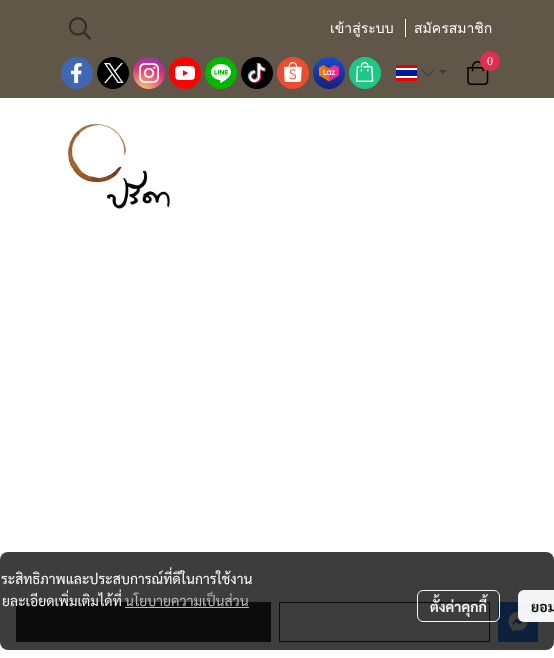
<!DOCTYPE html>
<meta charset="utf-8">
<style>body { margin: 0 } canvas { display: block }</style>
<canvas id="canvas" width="554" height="658"></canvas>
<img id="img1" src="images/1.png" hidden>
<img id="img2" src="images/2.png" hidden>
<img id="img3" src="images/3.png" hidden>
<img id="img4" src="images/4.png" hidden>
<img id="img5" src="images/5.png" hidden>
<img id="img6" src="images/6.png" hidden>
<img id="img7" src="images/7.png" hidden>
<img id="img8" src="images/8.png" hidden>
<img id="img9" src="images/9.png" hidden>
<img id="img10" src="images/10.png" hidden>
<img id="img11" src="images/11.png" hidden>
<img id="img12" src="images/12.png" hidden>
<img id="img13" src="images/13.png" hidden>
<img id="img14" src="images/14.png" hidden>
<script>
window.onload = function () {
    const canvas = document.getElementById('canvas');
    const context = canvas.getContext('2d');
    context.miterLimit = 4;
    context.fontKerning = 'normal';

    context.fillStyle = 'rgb(97, 87, 72)';
    context.fillRect(0, 0, 554, 658);
    context.drawImage(document.getElementById('img1'), 68, 17, 24, 23);
    context.fillStyle = 'rgb(255, 255, 255)';
    context.fillRect(405, 19, 1, 18);
    context.drawImage(document.getElementById('img2'), 61, 57, 32, 32);
    context.drawImage(document.getElementById('img3'), 97, 57, 32, 32);
    context.drawImage(document.getElementById('img4'), 133, 57, 32, 32);
    context.drawImage(document.getElementById('img5'), 169, 57, 32, 32);
    context.drawImage(document.getElementById('img6'), 205, 57, 32, 32);
    context.drawImage(document.getElementById('img7'), 241, 57, 32, 32);
    context.drawImage(document.getElementById('img8'), 277, 57, 32, 32);
    context.drawImage(document.getElementById('img9'), 313, 57, 32, 32);
    context.drawImage(document.getElementById('img10'), 349, 57, 32, 32);
    context.drawImage(document.getElementById('img11'), 467, 61, 22, 24);
    context.fillStyle = 'rgb(227, 45, 79)';
    context.beginPath();
    context.arc(490, 61, 10, 0, 2 * Math.PI);
    context.fill();
    context.fillStyle = 'rgb(255, 255, 255)';
    context.fillRect(396, 68, 21, 10);
    context.fillStyle = 'rgb(0, 27, 154)';
    context.fillRect(396, 70, 21, 6);
    context.fillStyle = 'rgb(231, 0, 0)';
    context.fillRect(396, 65, 21, 3);
    context.fillRect(396, 78, 21, 3);
    context.drawImage(document.getElementById('img12'), 421, 68, 14, 9);
    context.fillStyle = 'rgb(55, 62, 68)';
    context.beginPath();
    context.moveTo(439, 70);
    context.lineTo(447, 70);
    context.lineTo(443, 74);
    context.closePath();
    context.fill();
    context.fillStyle = 'rgb(255, 255, 255)';
    context.fillRect(0, 98, 554, 560);
    context.drawImage(document.getElementById('img13'), 68, 123, 102, 86);
    context.fillStyle = 'rgb(51, 51, 51)';
    context.fillRect(16, 602, 255, 40);
    context.strokeStyle = 'rgb(51, 51, 51)';
    context.strokeRect(279.5, 602.5, 210, 39);
    context.fillStyle = 'rgb(56, 133, 245)';
    context.fillRect(498, 602, 40, 40);
    context.drawImage(document.getElementById('img14'), 508, 612, 20, 20);
    context.fillStyle = 'rgba(0, 0, 0, 0.76)';
    context.beginPath();
    context.roundRect(0, 552, 554, 98, 8);
    context.fill();
    context.fillStyle = 'rgb(187, 187, 187)';
    context.fillRect(125, 607, 124, 1);
    context.beginPath();
    context.roundRect(417.5, 590.5, 82, 31, 5.5);
    context.strokeStyle = 'rgba(255, 255, 255, 0.95)';
    context.stroke();
    context.fillStyle = 'rgba(255, 255, 255, 0.95)';
    context.beginPath();
    context.roundRect(518, 590, 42, 32, 6);
    context.fill();
    context.font = '14px Loma';
    context.fillStyle = 'rgb(255, 255, 255)';
    context.fillText('เข้าสู่ระบบ', 330, 33);
    context.fillText('สมัครสมาชิก', 414, 33);
    context.font = '12px Liberation Serif';
    context.fillText('0', 487, 65);
    context.font = '14px Sarabun';
    context.fillText('ระสิทธิภาพและประสบการณ์ที่ดีในการใช้งาน', 1, 584);
    context.fillStyle = 'rgb(244, 244, 244)';
    context.fillText('ยละเอียดเพิ่มเติมได้ที่', 2, 606);
    context.fillStyle = 'rgb(186, 186, 186)';
    context.fillText('นโยบายความเป็นส่วน', 125, 606);
    context.font = 'bold 14px Sarabun';
    context.fillStyle = 'rgb(244, 244, 244)';
    context.fillText('ตั้งค่าคุกกี้', 430, 612);
    context.fillStyle = 'rgb(12, 12, 12)';
    context.fillText('ยอม', 531, 612);
};
</script>
